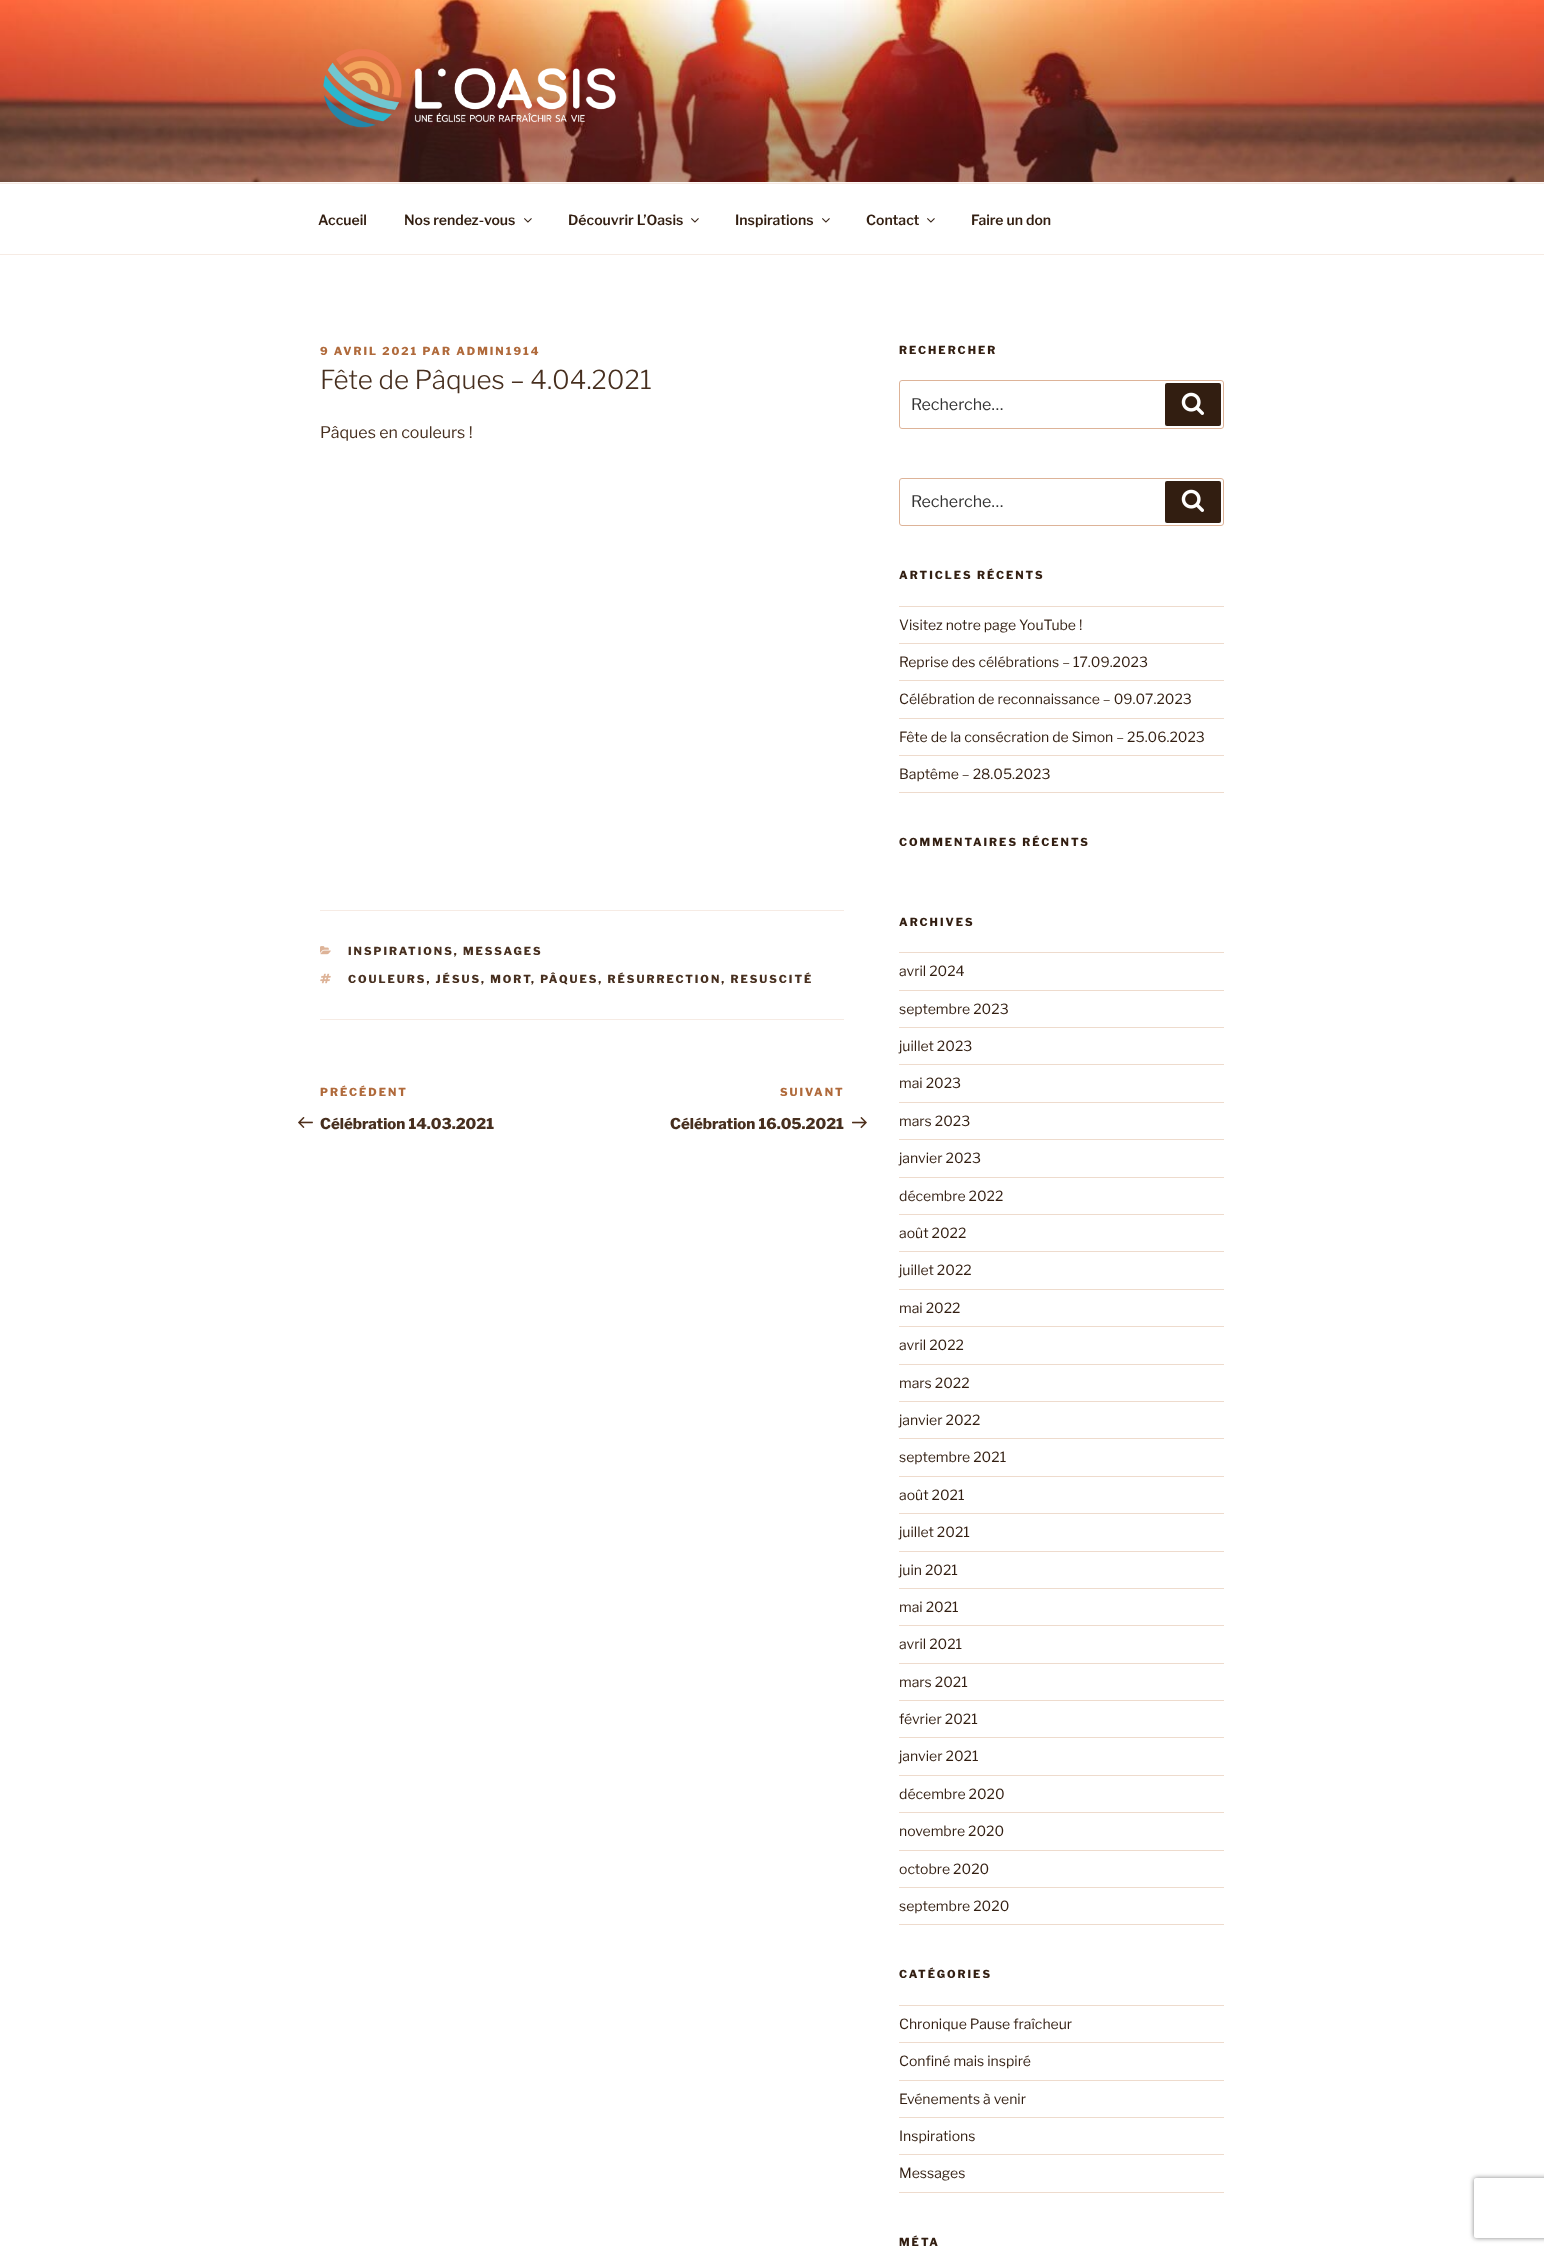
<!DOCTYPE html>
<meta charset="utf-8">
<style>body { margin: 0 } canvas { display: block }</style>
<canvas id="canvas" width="1544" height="2252"></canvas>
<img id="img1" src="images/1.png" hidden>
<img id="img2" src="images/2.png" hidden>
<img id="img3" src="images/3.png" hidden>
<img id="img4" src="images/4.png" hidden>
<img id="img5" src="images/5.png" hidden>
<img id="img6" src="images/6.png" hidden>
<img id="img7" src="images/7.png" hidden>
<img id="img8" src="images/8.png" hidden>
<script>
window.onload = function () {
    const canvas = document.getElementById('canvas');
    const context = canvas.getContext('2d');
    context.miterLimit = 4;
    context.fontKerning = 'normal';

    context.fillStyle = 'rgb(255, 255, 255)';
    context.fillRect(0, 0, 1544, 2252);
    context.fillStyle = 'rgb(252, 249, 247)';
    context.fillRect(0, 182, 1544, 1);
    context.drawImage(document.getElementById('img1'), 0, 0, 1544, 182);
    context.drawImage(document.getElementById('img2'), 323, 49, 293, 79);
    context.fillStyle = 'rgb(246, 235, 228)';
    context.fillRect(0, 183, 1544, 1);
    context.fillRect(0, 254, 1544, 1);
    context.drawImage(document.getElementById('img3'), 524, 218, 8, 5);
    context.drawImage(document.getElementById('img3'), 691, 218, 8, 5);
    context.drawImage(document.getElementById('img3'), 822, 218, 8, 5);
    context.drawImage(document.getElementById('img3'), 927, 218, 8, 5);
    context.fillRect(320, 910, 524, 1);
    context.fillRect(320, 1019, 524, 1);
    context.drawImage(document.getElementById('img4'), 320, 946, 11, 9);
    context.drawImage(document.getElementById('img5'), 320, 973, 11, 11);
    context.drawImage(document.getElementById('img6'), 298, 1117, 15, 11);
    context.drawImage(document.getElementById('img7'), 852, 1117, 15, 12);
    context.beginPath();
    context.roundRect(899.5, 380.5, 324, 48, 2.5);
    context.strokeStyle = 'rgb(221, 179, 152)';
    context.stroke();
    context.fillStyle = 'rgb(50, 30, 17)';
    context.beginPath();
    context.roundRect(1165, 383, 56, 43, 2);
    context.fill();
    context.drawImage(document.getElementById('img8'), 1181, 392, 23, 23);
    context.beginPath();
    context.roundRect(899.5, 478.5, 324, 47, 2.5);
    context.stroke();
    context.beginPath();
    context.roundRect(1165, 481, 56, 42, 2);
    context.fill();
    context.drawImage(document.getElementById('img8'), 1181, 489, 23, 23);
    context.fillStyle = 'rgb(238, 219, 205)';
    context.fillRect(899, 606, 325, 1);
    context.fillRect(899, 643, 325, 1);
    context.fillRect(899, 680, 325, 1);
    context.fillRect(899, 718, 325, 1);
    context.fillRect(899, 755, 325, 1);
    context.fillRect(899, 792, 325, 1);
    context.fillRect(899, 952, 325, 1);
    context.fillRect(899, 990, 325, 1);
    context.fillRect(899, 1027, 325, 1);
    context.fillRect(899, 1064, 325, 1);
    context.fillRect(899, 1102, 325, 1);
    context.fillRect(899, 1139, 325, 1);
    context.fillRect(899, 1177, 325, 1);
    context.fillRect(899, 1214, 325, 1);
    context.fillRect(899, 1251, 325, 1);
    context.fillRect(899, 1289, 325, 1);
    context.fillRect(899, 1326, 325, 1);
    context.fillRect(899, 1364, 325, 1);
    context.fillRect(899, 1401, 325, 1);
    context.fillRect(899, 1438, 325, 1);
    context.fillRect(899, 1476, 325, 1);
    context.fillRect(899, 1513, 325, 1);
    context.fillRect(899, 1551, 325, 1);
    context.fillRect(899, 1588, 325, 1);
    context.fillRect(899, 1625, 325, 1);
    context.fillRect(899, 1663, 325, 1);
    context.fillRect(899, 1700, 325, 1);
    context.fillRect(899, 1737, 325, 1);
    context.fillRect(899, 1775, 325, 1);
    context.fillRect(899, 1812, 325, 1);
    context.fillRect(899, 1850, 325, 1);
    context.fillRect(899, 1887, 325, 1);
    context.fillRect(899, 1924, 325, 1);
    context.fillRect(899, 2005, 325, 1);
    context.fillRect(899, 2042, 325, 1);
    context.fillRect(899, 2080, 325, 1);
    context.fillRect(899, 2117, 325, 1);
    context.fillRect(899, 2154, 325, 1);
    context.fillRect(899, 2192, 325, 1);
    context.save();
    context.beginPath();
    context.moveTo(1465, 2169);
    context.lineTo(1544, 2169);
    context.lineTo(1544, 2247);
    context.lineTo(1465, 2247);
    context.closePath();
    context.moveTo(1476, 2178);
    context.lineTo(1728, 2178);
    context.bezierCurveTo(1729, 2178, 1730, 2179, 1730, 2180);
    context.lineTo(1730, 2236);
    context.bezierCurveTo(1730, 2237, 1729, 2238, 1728, 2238);
    context.lineTo(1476, 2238);
    context.bezierCurveTo(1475, 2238, 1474, 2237, 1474, 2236);
    context.lineTo(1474, 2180);
    context.bezierCurveTo(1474, 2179, 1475, 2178, 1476, 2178);
    context.closePath();
    context.clip('evenodd');
    context.fillStyle = 'rgb(128, 128, 128)';
    context.filter = 'blur(2.5px)';
    context.beginPath();
    context.roundRect(1474, 2178, 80, 60, 2);
    context.fill();
    context.filter = 'none';
    context.restore();
    context.font = '600 14px Libre Franklin';
    context.fillStyle = 'rgb(50, 30, 17)';
    context.fillText('Accueil', 318, 225);
    context.fillText('Nos rendez-vous', 404, 225);
    context.fillText('Découvrir L’Oasis', 568, 225);
    context.fillText('Inspirations', 735, 225);
    context.fillText('Contact', 866, 225);
    context.fillText('Faire un don', 971, 225);
    context.letterSpacing = '2px';
    context.font = '800 11px Libre Franklin';
    context.fillStyle = 'rgb(176, 106, 59)';
    context.fillText('9 AVRIL 2021 PAR ADMIN1914', 320, 355);
    context.letterSpacing = '0px';
    context.font = '300 26px Libre Franklin';
    context.fillStyle = 'rgb(71, 47, 31)';
    context.fillText('Fête de Pâques – 4.04.2021', 320, 389);
    context.font = '16px Libre Franklin';
    context.fillText('Pâques en couleurs !', 320, 438);
    context.letterSpacing = '2px';
    context.font = '800 11px Libre Franklin';
    context.fillText('INSPIRATIONS, MESSAGES', 348, 955);
    context.fillText('COULEURS, JÉSUS, MORT', 348, 983);
    context.fillText(', PÂQUES, RÉSURRECTION, RESUSCITÉ', 531, 983);
    context.fillStyle = 'rgb(176, 106, 59)';
    context.fillText('PRÉCÉDENT', 320, 1096);
    context.letterSpacing = '0px';
    context.font = '800 15px Libre Franklin';
    context.fillStyle = 'rgb(71, 47, 31)';
    context.fillText('Célébration 14.03.2021', 320, 1129);
    context.letterSpacing = '2px';
    context.font = '800 11px Libre Franklin';
    context.fillStyle = 'rgb(176, 106, 59)';
    context.fillText('SUIVANT', 780, 1096);
    context.letterSpacing = '0px';
    context.font = '800 15px Libre Franklin';
    context.fillStyle = 'rgb(71, 47, 31)';
    context.fillText('Célébration 16.05.2021', 670, 1129);
    context.letterSpacing = '2px';
    context.font = '800 11px Libre Franklin';
    context.fillStyle = 'rgb(50, 30, 17)';
    context.fillText('RECHERCHER', 899, 354);
    context.letterSpacing = '0px';
    context.font = '16px Libre Franklin';
    context.fillStyle = 'rgb(51, 51, 51)';
    context.fillText('Recherche…', 911, 410);
    context.fillText('Recherche…', 911, 507);
    context.letterSpacing = '2px';
    context.font = '800 11px Libre Franklin';
    context.fillStyle = 'rgb(50, 30, 17)';
    context.fillText('ARTICLES RÉCENTS', 899, 579);
    context.letterSpacing = '0px';
    context.font = '14px Libre Franklin';
    context.fillText('Visitez notre page YouTube !', 899, 630);
    context.fillText('Reprise des célébrations – 17.09.2023', 899, 667);
    context.fillText('Célébration de reconnaissance – 09.07.2023', 899, 704);
    context.fillText('Fête de la consécration de Simon – 25.06.2023', 899, 742);
    context.fillText('Baptême – 28.05.2023', 899, 779);
    context.letterSpacing = '2px';
    context.font = '800 11px Libre Franklin';
    context.fillText('COMMENTAIRES RÉCENTS', 899, 846);
    context.fillText('ARCHIVES', 899, 926);
    context.letterSpacing = '0px';
    context.font = '14px Libre Franklin';
    context.fillText('avril 2024', 899, 976);
    context.fillText('septembre 2023', 899, 1014);
    context.fillText('juillet 2023', 899, 1051);
    context.fillText('mai 2023', 899, 1088);
    context.fillText('mars 2023', 899, 1126);
    context.fillText('janvier 2023', 899, 1163);
    context.fillText('décembre 2022', 899, 1201);
    context.fillText('août 2022', 899, 1238);
    context.fillText('juillet 2022', 899, 1275);
    context.fillText('mai 2022', 899, 1313);
    context.fillText('avril 2022', 899, 1350);
    context.fillText('mars 2022', 899, 1388);
    context.fillText('janvier 2022', 899, 1425);
    context.fillText('septembre 2021', 899, 1462);
    context.fillText('août 2021', 899, 1500);
    context.fillText('juillet 2021', 899, 1537);
    context.fillText('juin 2021', 899, 1575);
    context.fillText('mai 2021', 899, 1612);
    context.fillText('avril 2021', 899, 1649);
    context.fillText('mars 2021', 899, 1687);
    context.fillText('février 2021', 899, 1724);
    context.fillText('janvier 2021', 899, 1761);
    context.fillText('décembre 2020', 899, 1799);
    context.fillText('novembre 2020', 899, 1836);
    context.fillText('octobre 2020', 899, 1874);
    context.fillText('septembre 2020', 899, 1911);
    context.letterSpacing = '2px';
    context.font = '800 11px Libre Franklin';
    context.fillText('CATÉGORIES', 899, 1978);
    context.letterSpacing = '0px';
    context.font = '14px Libre Franklin';
    context.fillText('Chronique Pause fraîcheur', 899, 2029);
    context.fillText('Confiné mais inspiré', 899, 2066);
    context.fillText('Evénements à venir', 899, 2104);
    context.fillText('Inspirations', 899, 2141);
    context.fillText('Messages', 899, 2178);
    context.letterSpacing = '2px';
    context.font = '800 11px Libre Franklin';
    context.fillText('MÉTA', 899, 2246);
};
</script>
